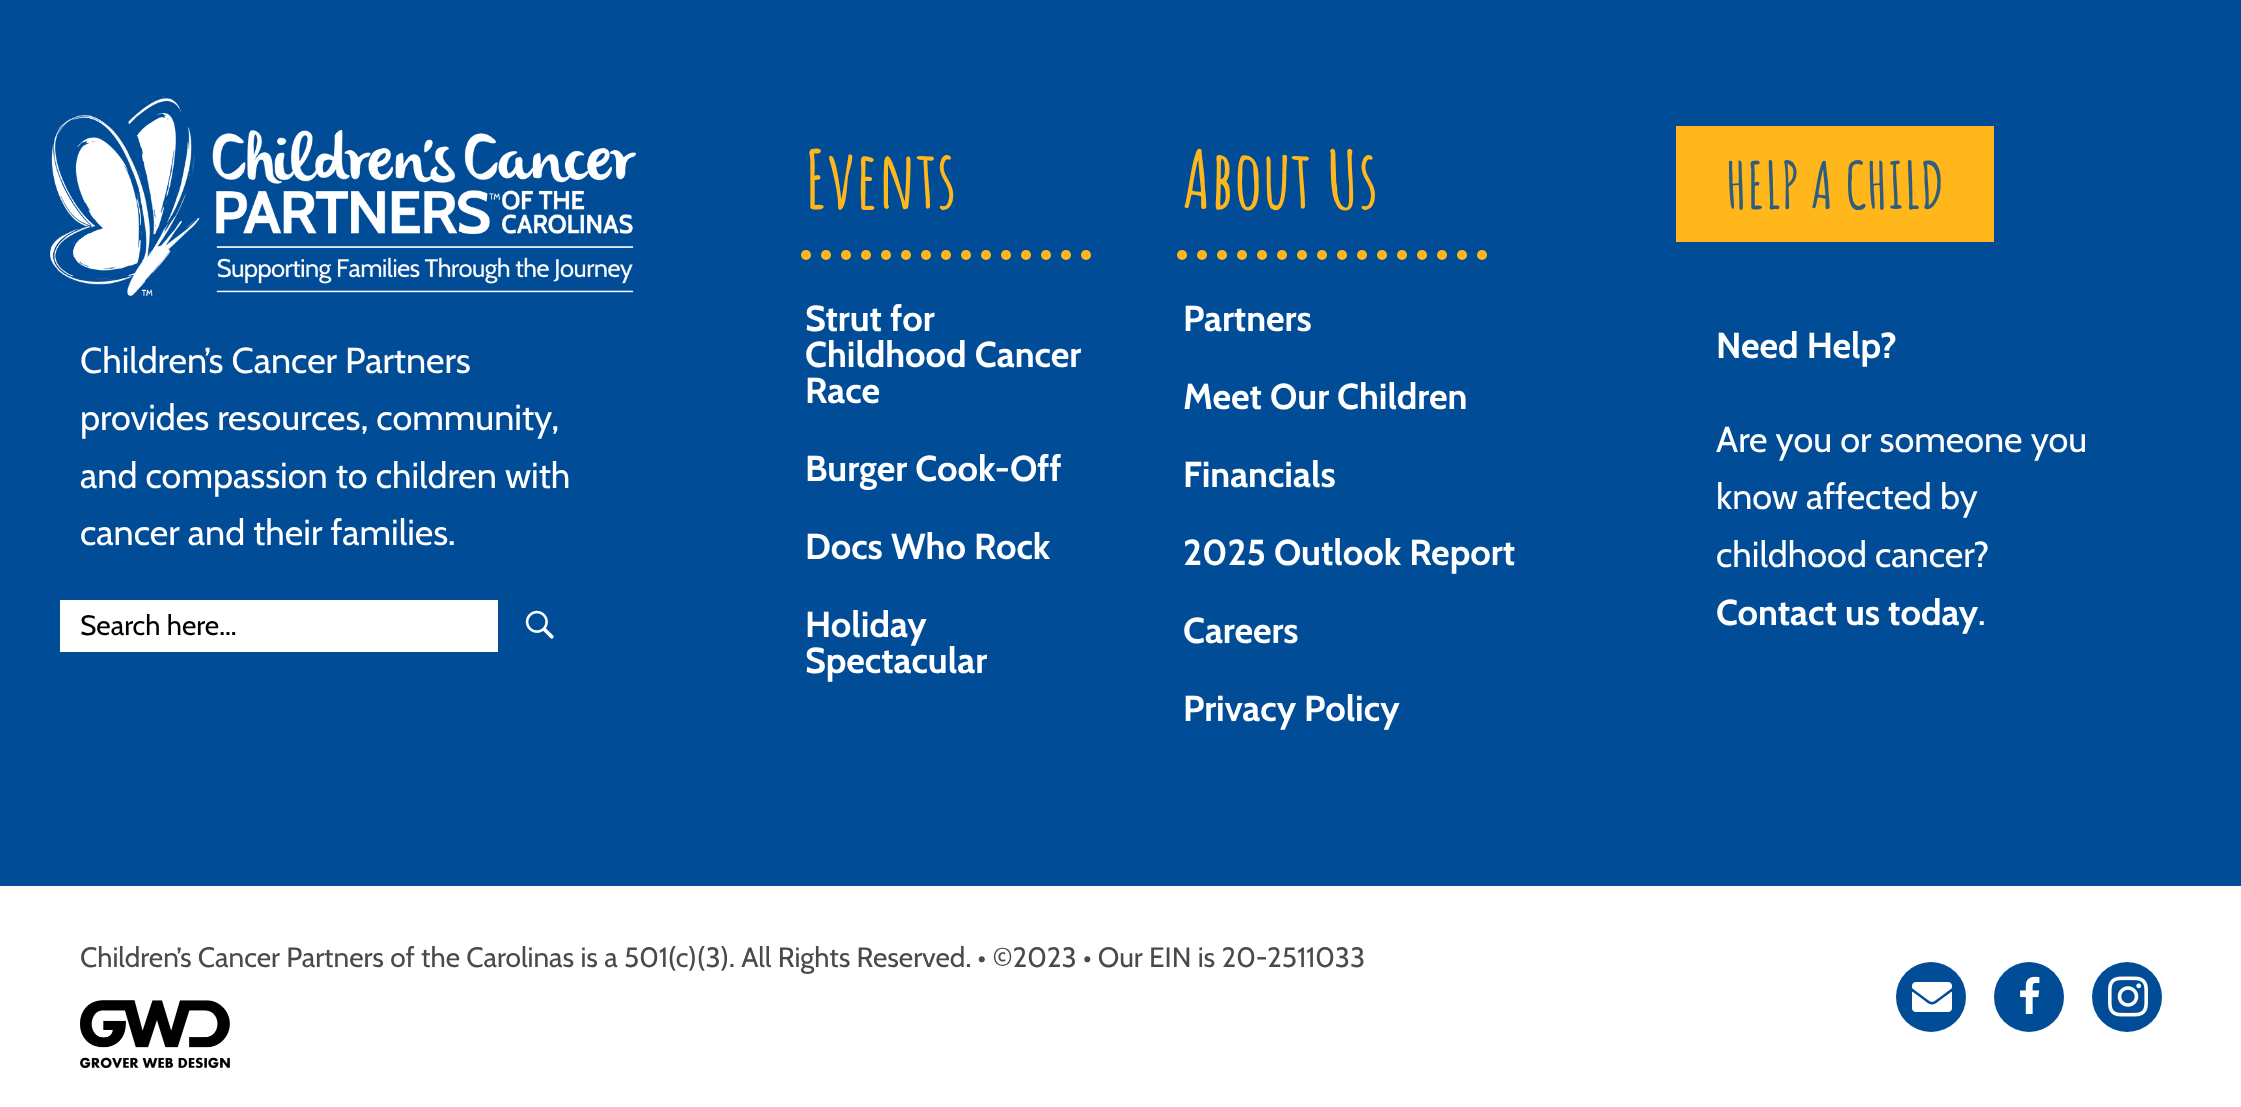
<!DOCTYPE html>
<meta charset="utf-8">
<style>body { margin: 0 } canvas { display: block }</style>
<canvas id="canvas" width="2241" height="1107"></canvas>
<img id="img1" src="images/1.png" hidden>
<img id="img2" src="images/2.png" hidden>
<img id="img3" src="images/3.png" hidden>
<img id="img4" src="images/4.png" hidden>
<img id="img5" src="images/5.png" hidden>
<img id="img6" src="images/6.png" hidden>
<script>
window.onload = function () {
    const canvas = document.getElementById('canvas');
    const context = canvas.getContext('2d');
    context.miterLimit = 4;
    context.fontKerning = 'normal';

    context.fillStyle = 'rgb(255, 255, 255)';
    context.fillRect(0, 0, 2241, 1107);
    context.fillStyle = 'rgb(0, 76, 150)';
    context.fillRect(0, 0, 2241, 886);
    context.drawImage(document.getElementById('img1'), 50, 96, 586, 200);
    context.fillStyle = 'rgb(255, 255, 255)';
    context.fillRect(60, 600, 438, 52);
    context.drawImage(document.getElementById('img2'), 525, 610, 29, 29);
    context.beginPath();
    context.moveTo(806, 255);
    context.lineTo(1102, 255);
    context.strokeStyle = 'rgb(255, 183, 28)';
    context.lineWidth = 10;
    context.lineCap = 'round';
    context.setLineDash([0, 20]);
    context.stroke();
    context.beginPath();
    context.moveTo(1182, 255);
    context.lineTo(1502, 255);
    context.stroke();
    context.fillStyle = 'rgb(255, 183, 28)';
    context.fillRect(1676, 126, 318, 116);
    context.drawImage(document.getElementById('img3'), 80, 1000, 150, 68);
    context.fillStyle = 'rgb(0, 76, 150)';
    context.beginPath();
    context.arc(1931, 997, 35, 0, 2 * Math.PI);
    context.fill();
    context.drawImage(document.getElementById('img4'), 1912, 982, 40, 30);
    context.beginPath();
    context.arc(2029, 997, 35, 0, 2 * Math.PI);
    context.fill();
    context.drawImage(document.getElementById('img5'), 2020, 976, 20, 38);
    context.beginPath();
    context.arc(2127, 997, 35, 0, 2 * Math.PI);
    context.fill();
    context.drawImage(document.getElementById('img6'), 2108, 976, 40, 41);
    context.font = '36px Cabin';
    context.fillStyle = 'rgb(255, 255, 255)';
    context.fillText('Children’s Cancer Partners', 80, 373);
    context.fillText('provides resources, community,', 80, 430);
    context.fillText('and compassion to children with', 80, 488);
    context.fillText('cancer and their families.', 80, 545);
    context.font = '28px Cabin';
    context.fillStyle = 'rgb(0, 0, 0)';
    context.fillText('Search here...', 80, 635);
    context.font = 'bold 80px Amatic SC';
    context.fillStyle = 'rgb(255, 183, 28)';
    context.fillText('Events', 805, 209);
    context.font = 'bold 36px Cabin';
    context.fillStyle = 'rgb(255, 255, 255)';
    context.fillText('Strut for', 805, 331);
    context.fillText('Childhood Cancer', 805, 367);
    context.fillText('Race', 805, 403);
    context.fillText('Burger Cook-Off', 805, 481);
    context.fillText('Docs Who Rock', 805, 559);
    context.fillText('Holiday', 805, 637);
    context.fillText('Spectacular', 805, 673);
    context.font = 'bold 80px Amatic SC';
    context.fillStyle = 'rgb(255, 183, 28)';
    context.fillText('About Us', 1183, 209);
    context.font = 'bold 36px Cabin';
    context.fillStyle = 'rgb(255, 255, 255)';
    context.fillText('Partners', 1183, 331);
    context.fillText('Meet Our Children', 1183, 409);
    context.fillText('Financials', 1183, 487);
    context.fillText('2025 Outlook Report', 1183, 565);
    context.fillText('Careers', 1183, 643);
    context.fillText('Privacy Policy', 1183, 721);
    context.font = 'bold 64px Amatic SC';
    context.fillStyle = 'rgb(48, 92, 125)';
    context.fillText('HELP A CHILD', 1726, 209);
    context.font = 'bold 36px Cabin';
    context.fillStyle = 'rgb(255, 255, 255)';
    context.fillText('Need Help?', 1716, 358);
    context.font = '36px Cabin';
    context.fillText('Are you or someone you', 1716, 452);
    context.fillText('know affected by', 1716, 509);
    context.fillText('childhood cancer?', 1716, 567);
    context.font = 'bold 36px Cabin';
    context.fillText('Contact us today', 1716, 625);
    context.font = '36px Cabin';
    context.fillText('.', 1978, 625);
    context.font = '28px Cabin';
    context.fillStyle = 'rgb(73, 74, 75)';
    context.fillText('Children’s Cancer Partners of the Carolinas is a 501(c)(3). All Rights Reserved. • ©2023 • Our EIN is 20-2511033', 80, 967);
};
</script>
